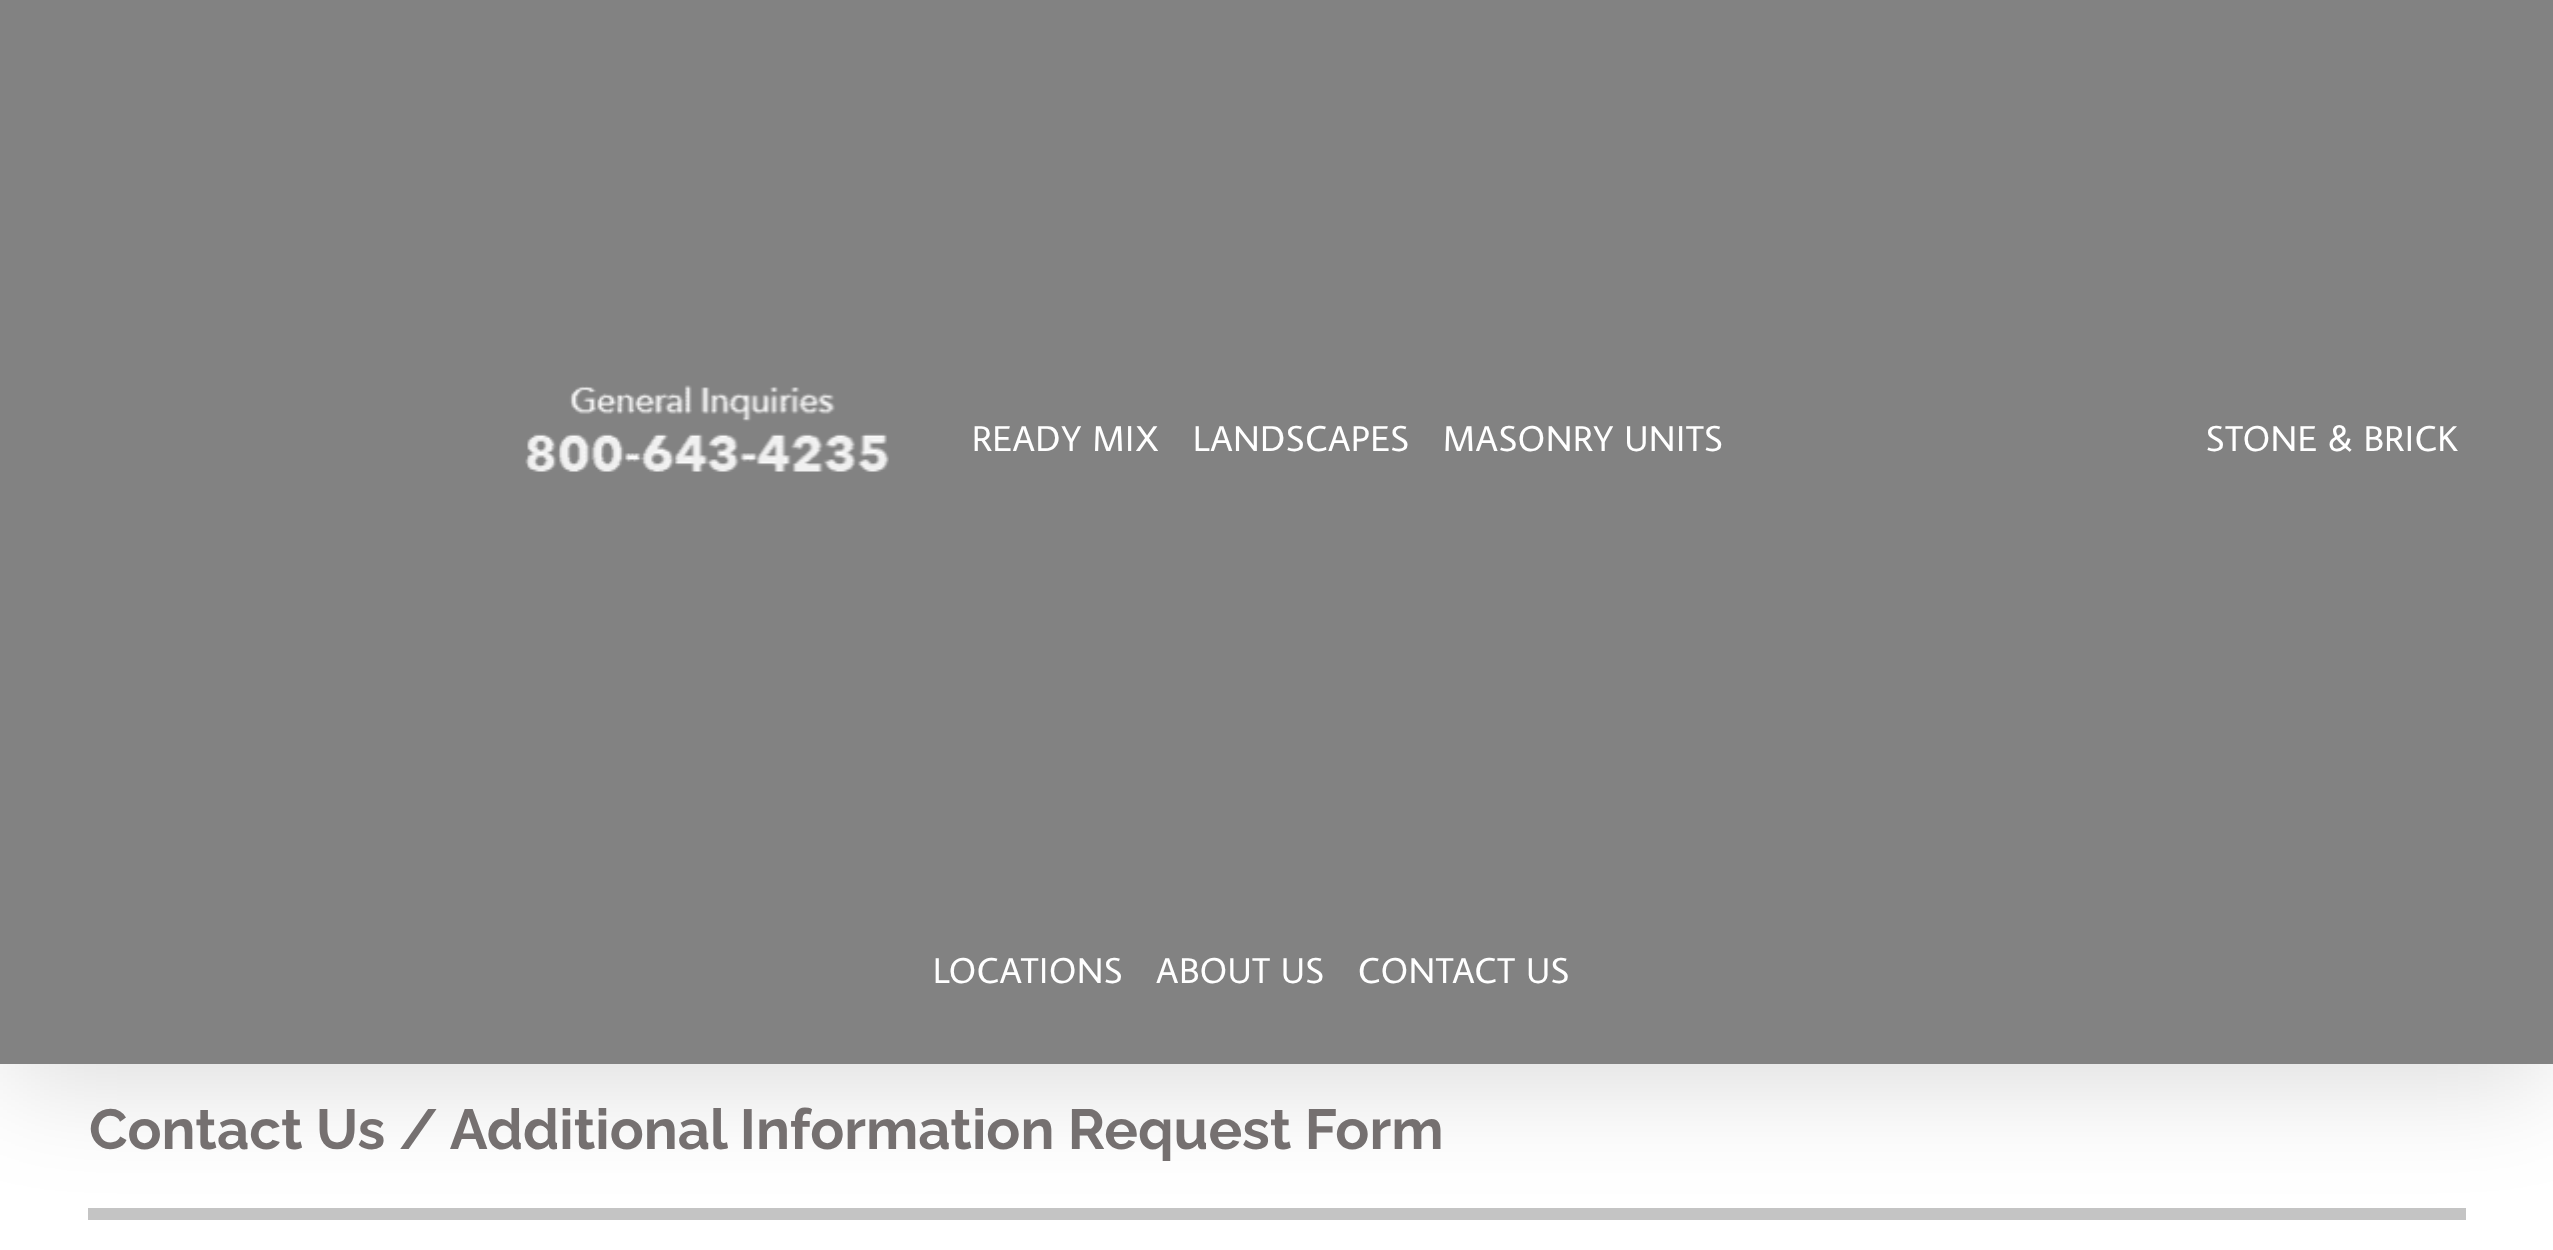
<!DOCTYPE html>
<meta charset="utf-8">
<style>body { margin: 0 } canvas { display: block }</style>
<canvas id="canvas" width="2553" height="1250"></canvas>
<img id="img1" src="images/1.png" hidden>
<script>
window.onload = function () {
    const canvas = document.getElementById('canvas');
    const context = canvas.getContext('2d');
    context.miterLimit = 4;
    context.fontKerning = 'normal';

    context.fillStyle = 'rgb(255, 255, 255)';
    context.fillRect(0, 0, 2553, 1250);
    context.fillStyle = 'rgb(196, 196, 196)';
    context.fillRect(88, 1208, 2378, 12);
    context.fillStyle = 'rgba(0, 0, 0, 0.14)';
    context.filter = 'blur(56px)';
    context.beginPath();
    context.rect(5, 27, 2544, 1055);
    context.fill();
    context.filter = 'none';
    context.fillStyle = 'rgb(130, 130, 130)';
    context.fillRect(0, 0, 2553, 1064);
    context.drawImage(document.getElementById('img1'), 525, 385, 364, 87);
    context.letterSpacing = '0.7px';
    context.font = '36px Average Sans';
    context.fillStyle = 'rgb(255, 255, 255)';
    context.fillText('READY MIX', 972, 451);
    context.fillText('LANDSCAPES', 1193, 451);
    context.fillText('MASONRY UNITS', 1443, 451);
    context.fillText('STONE & BRICK', 2206, 451);
    context.fillText('LOCATIONS', 933, 983);
    context.fillText('ABOUT US', 1156, 983);
    context.fillText('CONTACT US', 1358, 983);
    context.letterSpacing = '0px';
    context.font = 'bold 56.25px Raleway';
    context.fillStyle = 'rgb(117, 112, 112)';
    context.fillText('Contact Us / Additional Information Request Form', 89, 1149);
};
</script>
